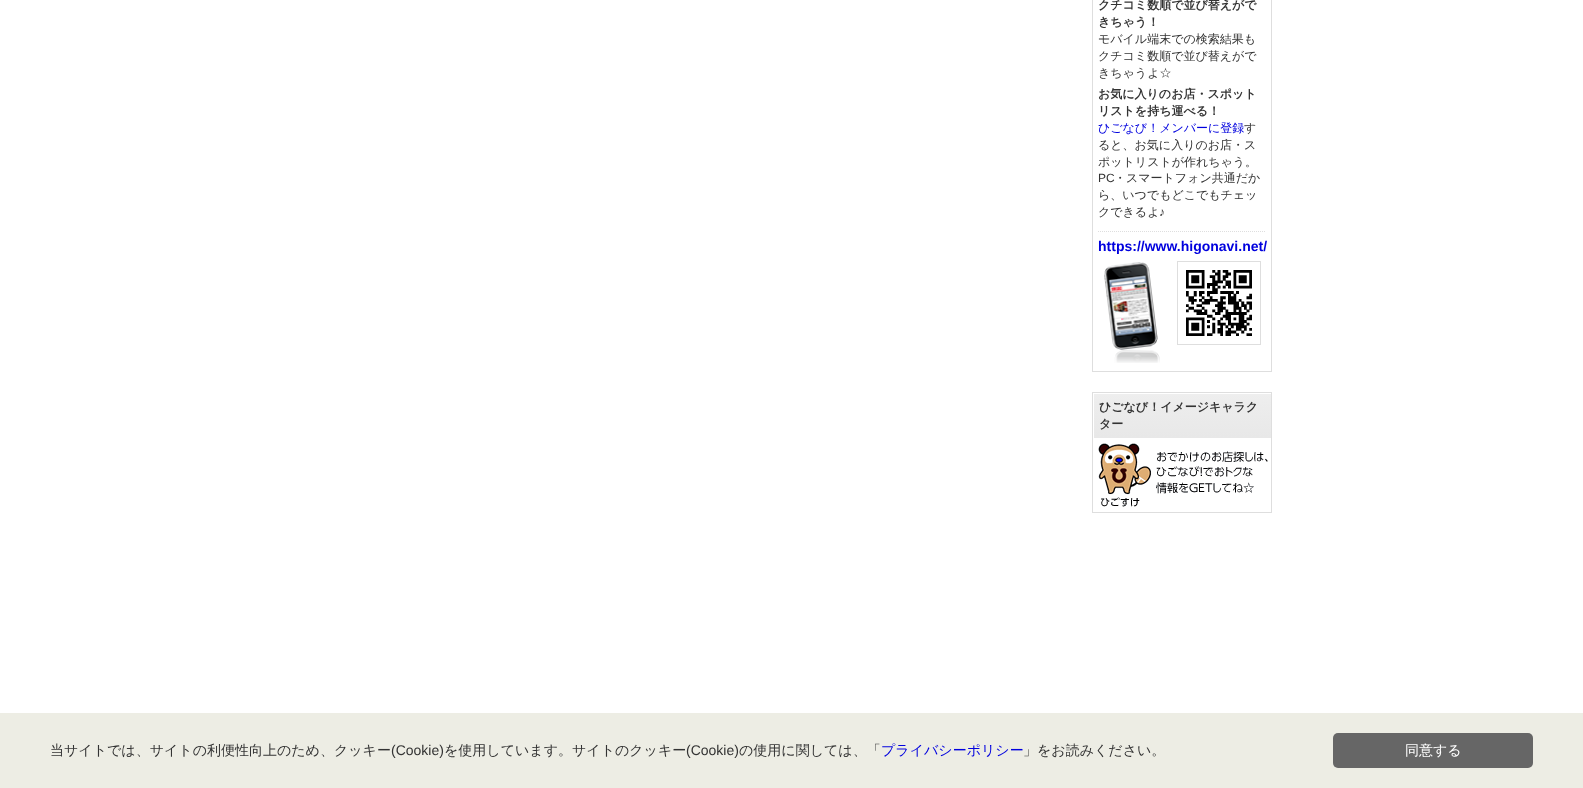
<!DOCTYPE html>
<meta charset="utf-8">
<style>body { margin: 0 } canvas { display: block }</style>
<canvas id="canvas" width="1583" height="788"></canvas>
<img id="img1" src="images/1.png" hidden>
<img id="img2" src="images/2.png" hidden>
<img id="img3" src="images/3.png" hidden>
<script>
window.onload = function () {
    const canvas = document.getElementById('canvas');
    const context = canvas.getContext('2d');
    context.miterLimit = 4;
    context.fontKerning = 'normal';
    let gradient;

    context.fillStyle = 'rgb(255, 255, 255)';
    context.fillRect(0, 0, 1583, 788);
    context.strokeStyle = 'rgb(222, 222, 222)';
    context.strokeRect(1092.5, -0.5, 179, 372);
    context.beginPath();
    context.moveTo(1098, 231.5);
    context.lineTo(1266, 231.5);
    context.setLineDash([1, 1]);
    context.stroke();
    context.drawImage(document.getElementById('img1'), 1104, 262, 56, 101);
    context.setLineDash([]);
    context.strokeRect(1177.5, 261.5, 83, 83);
    context.drawImage(document.getElementById('img2'), 1186, 270, 66, 66);
    context.strokeRect(1092.5, 392.5, 179, 120);
    gradient = context.createLinearGradient(1183, 394, 1183, 438);
    gradient.addColorStop(0, 'rgb(238, 238, 238)');
    gradient.addColorStop(1, 'rgb(232, 232, 232)');
    context.fillStyle = gradient;
    context.fillRect(1094, 394, 177, 44);
    context.drawImage(document.getElementById('img3'), 1098, 443, 170, 64);
    context.fillStyle = 'rgb(237, 237, 228)';
    context.fillRect(0, 713, 1583, 75);
    context.fillStyle = 'rgb(102, 102, 102)';
    context.beginPath();
    context.roundRect(1333, 733, 200, 35, 5);
    context.fill();
    context.font = 'bold 12px WenQuanYi Zen Hei';
    context.fillStyle = 'rgb(51, 51, 51)';
    context.fillText('クチコミ数順で並び替えがで', 1098, 9);
    context.fillText('きちゃう！', 1098, 26);
    context.font = '500 12px WenQuanYi Zen Hei';
    context.fillText('モバイル端末での検索結果も', 1098, 43);
    context.fillText('クチコミ数順で並び替えがで', 1098, 60);
    context.fillText('きちゃうよ☆', 1098, 77);
    context.font = 'bold 12px WenQuanYi Zen Hei';
    context.fillText('お気に入りのお店・スポット', 1098, 98);
    context.fillText('リストを持ち運べる！', 1098, 115);
    context.font = '500 12px WenQuanYi Zen Hei';
    context.fillStyle = 'rgb(0, 0, 222)';
    context.fillText('ひごなび！メンバーに登録', 1098, 132);
    context.fillStyle = 'rgb(51, 51, 51)';
    context.fillText('す', 1244, 132);
    context.fillText('ると、お気に入りのお店・ス', 1098, 149);
    context.fillText('ポットリストが作れちゃう。', 1098, 166);
    context.font = '12px Liberation Sans';
    context.fillText('PC', 1098, 182);
    context.font = '500 12px WenQuanYi Zen Hei';
    context.fillText('・スマートフォン共通だか', 1114, 182);
    context.fillText('ら、いつでもどこでもチェッ', 1098, 199);
    context.fillText('クできるよ', 1098, 216);
    context.font = '12px Liberation Sans';
    context.fillText('♪', 1159, 216);
    context.font = 'bold 14px Liberation Sans';
    context.fillStyle = 'rgb(0, 0, 222)';
    context.fillText('https://www.higonavi.net/', 1098, 251);
    context.font = 'bold 12px WenQuanYi Zen Hei';
    context.fillStyle = 'rgb(51, 51, 51)';
    context.fillText('ひごなび！イメージキャラク', 1099, 411);
    context.fillText('ター', 1099, 428);
    context.font = '500 14px WenQuanYi Zen Hei';
    context.fillText('当サイトでは、サイトの利便性向上のため、クッキー', 50, 755);
    context.font = '14px Liberation Sans';
    context.fillText('(Cookie)', 391, 755);
    context.font = '500 14px WenQuanYi Zen Hei';
    context.fillText('を使用しています。サイトのクッキー', 444, 755);
    context.font = '14px Liberation Sans';
    context.fillText('(Cookie)', 686, 755);
    context.font = '500 14px WenQuanYi Zen Hei';
    context.fillText('の使用に関しては、「', 739, 755);
    context.fillStyle = 'rgb(0, 0, 222)';
    context.fillText('プライバシーポリシー', 881, 755);
    context.fillStyle = 'rgb(51, 51, 51)';
    context.fillText('」をお読みください。', 1023, 755);
    context.fillStyle = 'rgb(255, 255, 255)';
    context.fillText('同意する', 1405, 755);
};
</script>
